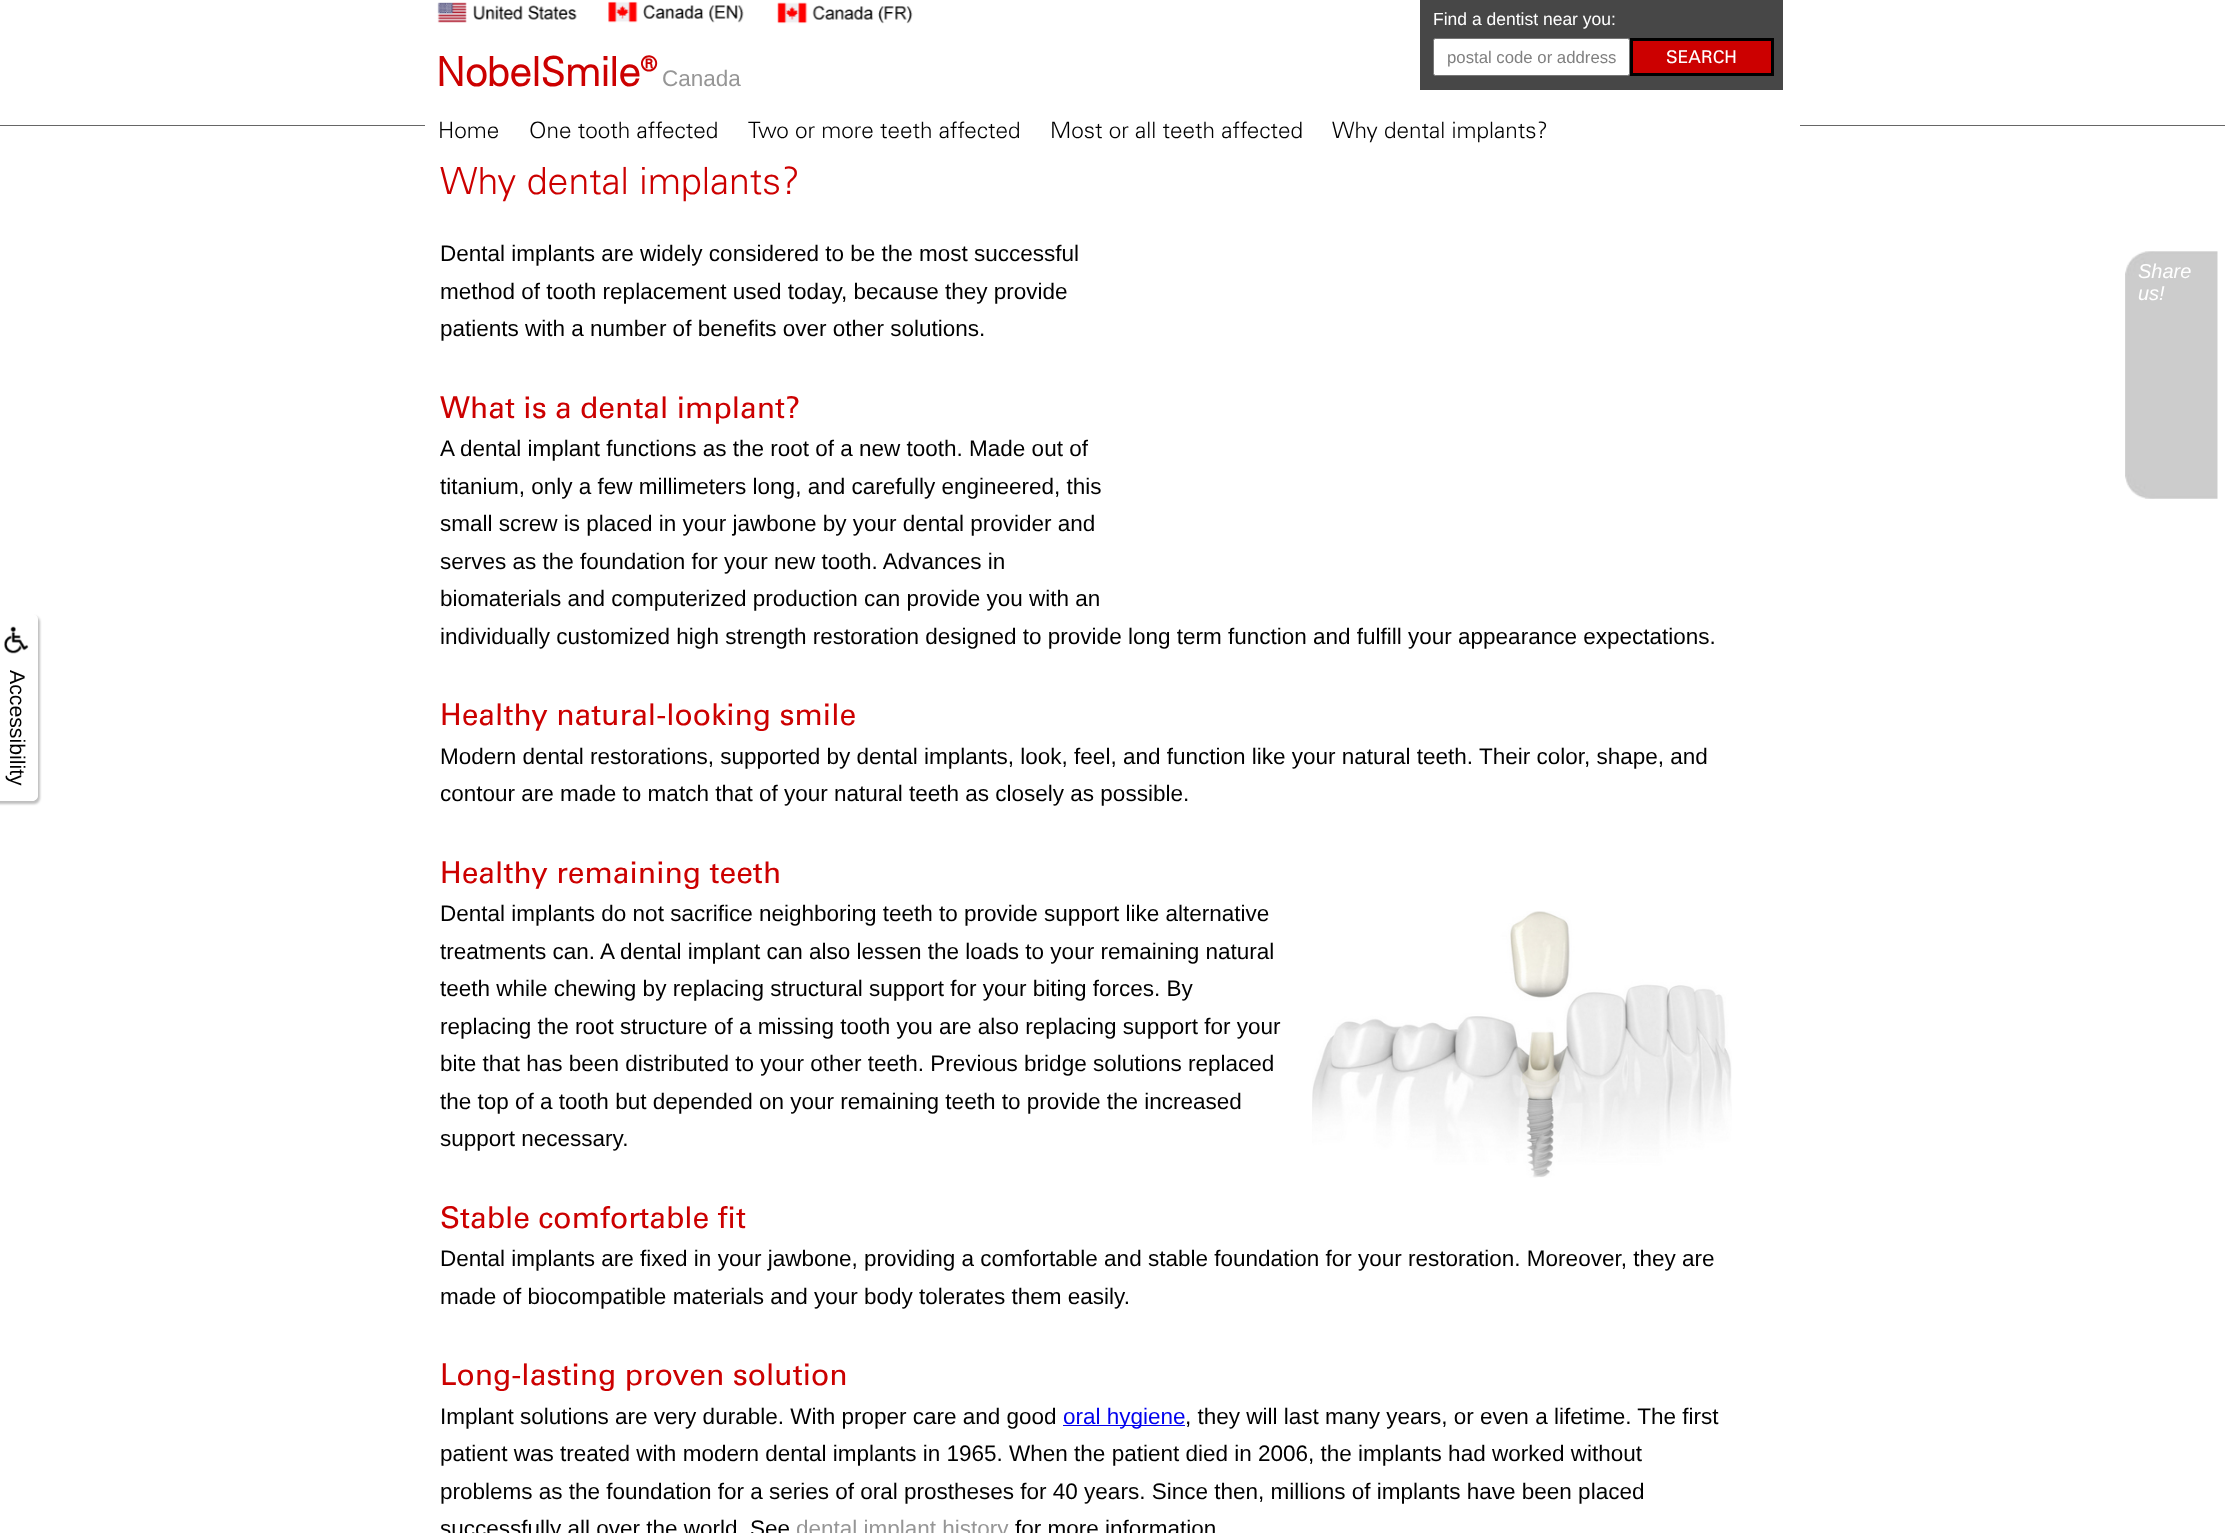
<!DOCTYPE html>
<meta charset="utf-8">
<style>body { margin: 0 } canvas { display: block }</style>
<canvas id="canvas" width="2225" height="1533"></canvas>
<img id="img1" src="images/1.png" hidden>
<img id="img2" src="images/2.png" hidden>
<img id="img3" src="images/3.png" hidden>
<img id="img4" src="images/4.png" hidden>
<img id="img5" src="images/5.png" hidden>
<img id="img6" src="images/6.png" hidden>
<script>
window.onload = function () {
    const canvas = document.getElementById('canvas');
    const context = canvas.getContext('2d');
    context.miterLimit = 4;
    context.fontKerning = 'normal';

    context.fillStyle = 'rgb(255, 255, 255)';
    context.fillRect(0, 0, 2225, 1533);
    context.fillStyle = 'rgb(71, 71, 71)';
    context.fillRect(1420, 0, 363, 90);
    context.fillStyle = 'rgb(255, 255, 255)';
    context.beginPath();
    context.roundRect(1433.5, 38.5, 196, 37, 2);
    context.fill();
    context.strokeStyle = 'rgb(118, 118, 118)';
    context.stroke();
    context.fillStyle = 'rgb(204, 0, 0)';
    context.beginPath();
    context.rect(1631.5, 39.5, 141, 35);
    context.fill();
    context.strokeStyle = 'rgb(0, 0, 0)';
    context.lineWidth = 3;
    context.stroke();
    context.drawImage(document.getElementById('img1'), 437, 2, 140, 21);
    context.drawImage(document.getElementById('img2'), 608, 1, 136, 22);
    context.drawImage(document.getElementById('img3'), 777, 2, 136, 22);
    context.fillStyle = 'rgb(102, 102, 102)';
    context.fillRect(0, 125, 2225, 1);
    context.fillStyle = 'rgb(255, 255, 255)';
    context.fillRect(425, 125, 1375, 1);
    context.drawImage(document.getElementById('img4'), 1312, 911, 420, 267);
    context.fillStyle = 'rgb(0, 0, 238)';
    context.fillRect(1063, 1425, 122, 1);
    context.drawImage(document.getElementById('img5'), 2125, 251, 93, 248);
    context.save();
    context.beginPath();
    context.moveTo(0, 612);
    context.lineTo(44, 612);
    context.lineTo(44, 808);
    context.lineTo(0, 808);
    context.closePath();
    context.moveTo(-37, 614);
    context.lineTo(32, 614);
    context.bezierCurveTo(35.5, 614, 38, 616.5, 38, 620);
    context.lineTo(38, 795);
    context.bezierCurveTo(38, 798.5, 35.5, 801, 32, 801);
    context.lineTo(-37, 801);
    context.closePath();
    context.clip('evenodd');
    context.fillStyle = 'rgba(0, 0, 0, 0.25)';
    context.filter = 'blur(1px)';
    context.beginPath();
    context.roundRect(-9, 616, 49, 188, 6);
    context.fill();
    context.filter = 'none';
    context.restore();
    context.fillStyle = 'rgba(255, 255, 255, 0.7)';
    context.beginPath();
    context.moveTo(-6, 614);
    context.lineTo(32, 614);
    context.bezierCurveTo(35.5, 614, 38, 616.5, 38, 620);
    context.lineTo(38, 795);
    context.bezierCurveTo(38, 798.5, 35.5, 801, 32, 801);
    context.lineTo(-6, 801);
    context.closePath();
    context.fill();
    context.drawImage(document.getElementById('img6'), 4, 626, 25, 28);
    context.font = '17.5px Liberation Sans';
    context.fillStyle = 'rgb(255, 255, 255)';
    context.fillText('Find a dentist near you:', 1433, 25);
    context.font = '16.75px Liberation Sans';
    context.fillStyle = 'rgb(128, 128, 128)';
    context.fillText('postal code or address', 1447, 63);
    context.font = '17.5px "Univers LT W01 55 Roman"';
    context.fillStyle = 'rgb(255, 255, 255)';
    context.fillText('SEARCH', 1666, 63);
    context.font = 'bold 40px "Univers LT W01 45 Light"';
    context.fillStyle = 'rgb(204, 0, 0)';
    context.fillText('NobelSmile®', 436, 86);
    context.font = '22.5px Liberation Sans';
    context.fillStyle = 'rgb(150, 150, 150)';
    context.fillText('Canada', 662, 86);
    context.font = '300 22.5px "Univers LT W01 45 Light"';
    context.fillStyle = 'rgb(0, 0, 0)';
    context.fillText('Home', 438, 138);
    context.fillText('One tooth affected', 529, 138);
    context.fillText('Two or more teeth affected', 748, 138);
    context.fillText('Most or all teeth affected', 1050, 138);
    context.fillText('Why dental implants?', 1332, 138);
    context.font = '300 37.5px "Univers LT W01 45 Light"';
    context.fillStyle = 'rgb(204, 0, 0)';
    context.fillText('Why dental implants?', 440, 194);
    context.font = '22.5px Liberation Sans';
    context.fillStyle = 'rgb(0, 0, 0)';
    context.fillText('Dental implants are widely considered to be the most successful', 440, 261);
    context.fillText('method of tooth replacement used today, because they provide', 440, 299);
    context.fillText('patients with a number of benefits over other solutions.', 440, 336);
    context.font = '30px "Univers LT W01 55 Roman"';
    context.fillStyle = 'rgb(204, 0, 0)';
    context.fillText('What is a dental implant?', 440, 418);
    context.font = '22.5px Liberation Sans';
    context.fillStyle = 'rgb(0, 0, 0)';
    context.fillText('A dental implant functions as the root of a new tooth. Made out of', 440, 456);
    context.fillText('titanium, only a few millimeters long, and carefully engineered, this', 440, 494);
    context.fillText('small screw is placed in your jawbone by your dental provider and', 440, 531);
    context.fillText('serves as the foundation for your new tooth. Advances in', 440, 569);
    context.fillText('biomaterials and computerized production can provide you with an', 440, 606);
    context.fillText('individually customized high strength restoration designed to provide long term function and fulfill your appearance expectations.', 440, 644);
    context.font = '30px "Univers LT W01 55 Roman"';
    context.fillStyle = 'rgb(204, 0, 0)';
    context.fillText('Healthy natural-looking smile', 440, 725);
    context.font = '22.5px Liberation Sans';
    context.fillStyle = 'rgb(0, 0, 0)';
    context.fillText('Modern dental restorations, supported by dental implants, look, feel, and function like your natural teeth. Their color, shape, and', 440, 764);
    context.fillText('contour are made to match that of your natural teeth as closely as possible.', 440, 801);
    context.font = '30px "Univers LT W01 55 Roman"';
    context.fillStyle = 'rgb(204, 0, 0)';
    context.fillText('Healthy remaining teeth', 440, 883);
    context.font = '22.5px Liberation Sans';
    context.fillStyle = 'rgb(0, 0, 0)';
    context.fillText('Dental implants do not sacrifice neighboring teeth to provide support like alternative', 440, 921);
    context.fillText('treatments can. A dental implant can also lessen the loads to your remaining natural', 440, 959);
    context.fillText('teeth while chewing by replacing structural support for your biting forces. By', 440, 996);
    context.fillText('replacing the root structure of a missing tooth you are also replacing support for your', 440, 1034);
    context.fillText('bite that has been distributed to your other teeth. Previous bridge solutions replaced', 440, 1071);
    context.fillText('the top of a tooth but depended on your remaining teeth to provide the increased', 440, 1109);
    context.fillText('support necessary.', 440, 1146);
    context.font = '30px "Univers LT W01 55 Roman"';
    context.fillStyle = 'rgb(204, 0, 0)';
    context.fillText('Stable comfortable fit', 440, 1228);
    context.font = '22.5px Liberation Sans';
    context.fillStyle = 'rgb(0, 0, 0)';
    context.fillText('Dental implants are fixed in your jawbone, providing a comfortable and stable foundation for your restoration. Moreover, they are', 440, 1266);
    context.fillText('made of biocompatible materials and your body tolerates them easily.', 440, 1304);
    context.font = '30px "Univers LT W01 55 Roman"';
    context.fillStyle = 'rgb(204, 0, 0)';
    context.fillText('Long-lasting proven solution', 440, 1385);
    context.font = '22.5px Liberation Sans';
    context.fillStyle = 'rgb(0, 0, 0)';
    context.fillText('Implant solutions are very durable. With proper care and good', 440, 1424);
    context.fillStyle = 'rgb(0, 0, 238)';
    context.fillText('oral hygiene', 1063, 1424);
    context.fillStyle = 'rgb(0, 0, 0)';
    context.fillText(', they will last many years, or even a lifetime. The first', 1185, 1424);
    context.fillText('patient was treated with modern dental implants in 1965. When the patient died in 2006, the implants had worked without', 440, 1461);
    context.fillText('problems as the foundation for a series of oral prostheses for 40 years. Since then, millions of implants have been placed', 440, 1499);
    context.fillText('successfully all over the world', 440, 1536);
    context.fillText('See', 750, 1536);
    context.fillStyle = 'rgb(150, 150, 150)';
    context.fillText('dental implant history', 796, 1536);
    context.fillStyle = 'rgb(0, 0, 0)';
    context.fillText('for more information', 1015, 1536);
    context.font = 'italic 20px Liberation Sans';
    context.fillStyle = 'rgb(255, 255, 255)';
    context.fillText('Share', 2138, 278);
    context.fillText('us!', 2138, 300);
    context.font = '21.25px Liberation Sans';
    context.fillStyle = 'rgb(0, 0, 0)';
    context.save();
    context.translate(10, 670);
    context.rotate(90 * Math.PI / 180);
    context.fillText('Accessibility', 0, 0);
    context.restore();
};
</script>
